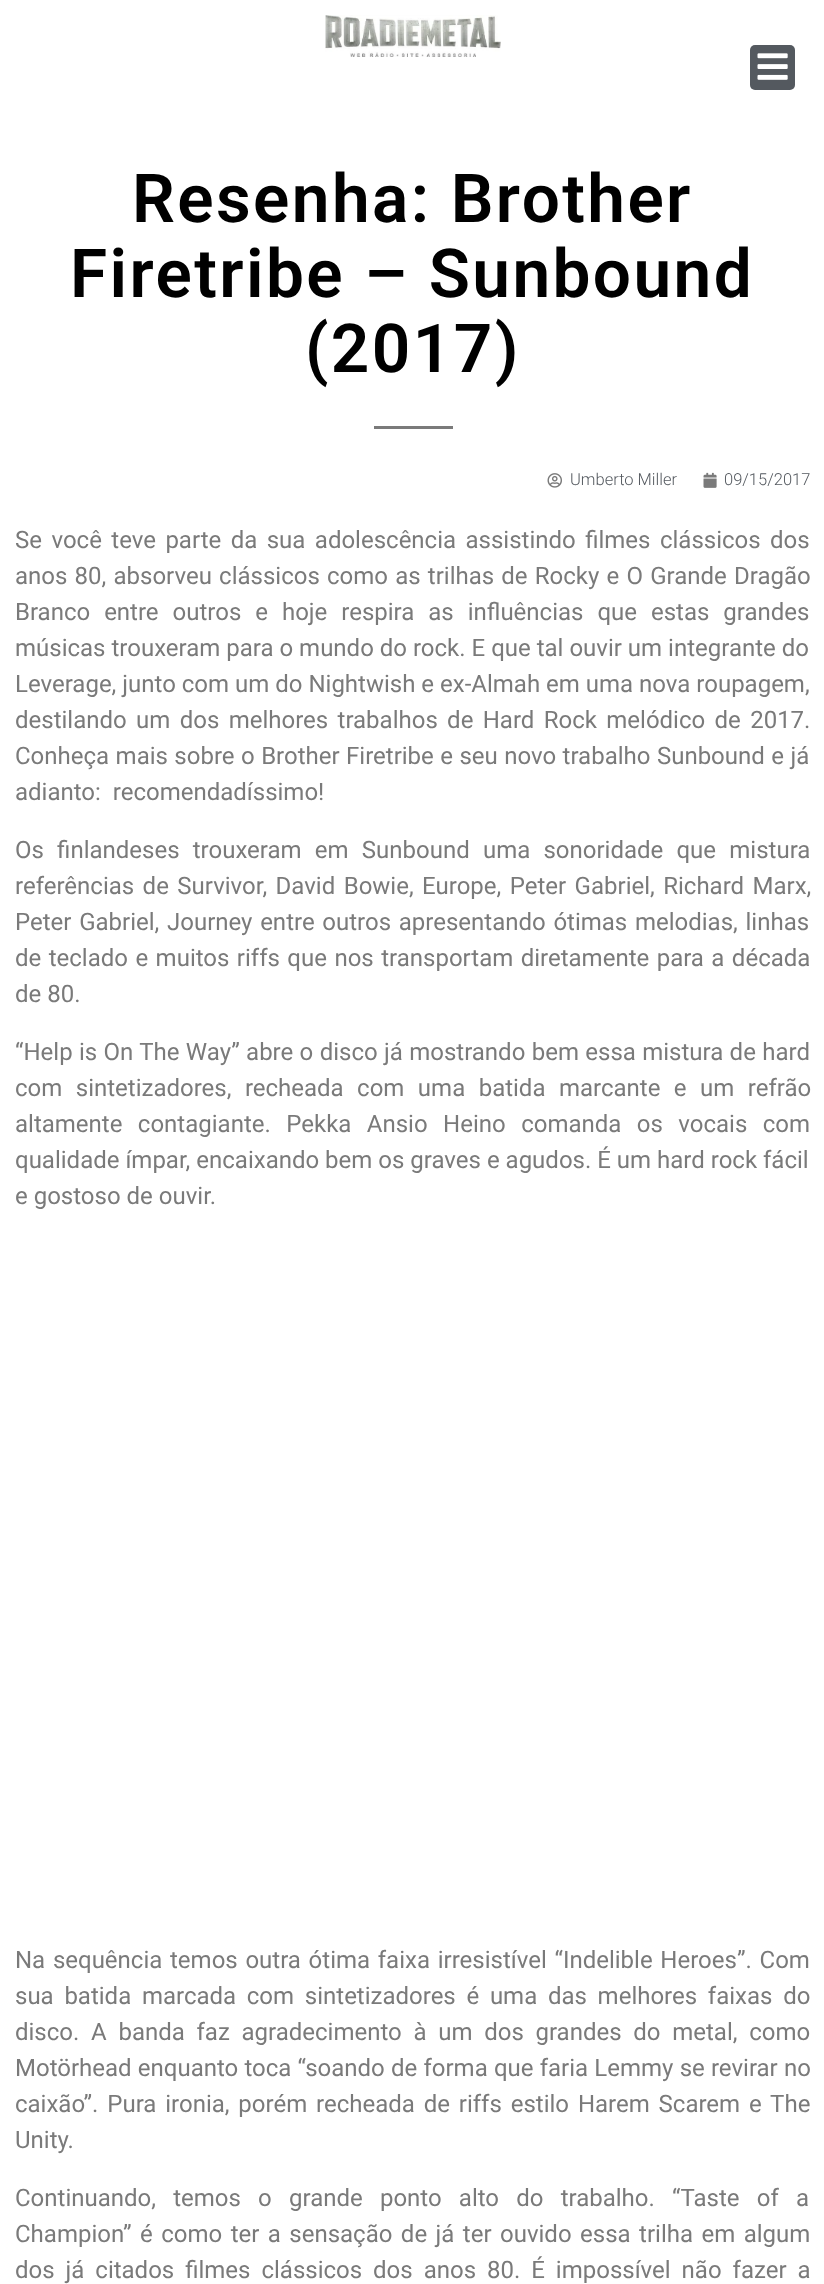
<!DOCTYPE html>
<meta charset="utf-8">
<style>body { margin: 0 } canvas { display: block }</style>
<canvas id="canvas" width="824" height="2284"></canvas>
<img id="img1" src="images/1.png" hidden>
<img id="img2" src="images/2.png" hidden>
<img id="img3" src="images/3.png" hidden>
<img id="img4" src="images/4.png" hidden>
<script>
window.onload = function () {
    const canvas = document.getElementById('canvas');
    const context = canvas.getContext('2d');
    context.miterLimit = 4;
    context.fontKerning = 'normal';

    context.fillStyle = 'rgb(255, 255, 255)';
    context.fillRect(0, 0, 824, 2284);
    context.drawImage(document.getElementById('img1'), 325, 15, 176, 42);
    context.fillStyle = 'rgb(84, 89, 95)';
    context.beginPath();
    context.roundRect(750, 45, 45, 45, 5);
    context.fill();
    context.drawImage(document.getElementById('img2'), 757, 53, 31, 27);
    context.fillStyle = 'rgb(122, 122, 122)';
    context.fillRect(374, 426, 79, 3);
    context.drawImage(document.getElementById('img3'), 547, 473, 15, 15);
    context.drawImage(document.getElementById('img4'), 703, 472, 14, 16);
    context.letterSpacing = '2.4px';
    context.font = '600 67.5px Roboto';
    context.fillStyle = 'rgb(0, 0, 0)';
    context.fillText('Resenha: Brother', 132, 222);
    context.fillText('Firetribe – Sunbound', 70, 297);
    context.fillText('(2017)', 305, 372);
    context.letterSpacing = '0px';
    context.font = '300 16.5px Roboto';
    context.fillStyle = 'rgb(84, 89, 95)';
    context.fillText('Umberto Miller', 570, 485);
    context.fillText('09/15/2017', 724, 485);
    context.wordSpacing = '3.5px';
    context.font = '24px Roboto';
    context.fillStyle = 'rgb(122, 122, 122)';
    context.fillText('Se você teve parte da sua adolescência assistindo filmes clássicos dos', 15, 548);
    context.wordSpacing = '1.25px';
    context.fillText('anos 80, absorveu clássicos como as trilhas de Rocky e O Grande Dragão', 15, 584);
    context.wordSpacing = '8px';
    context.fillText('Branco entre outros e hoje respira as influências que estas grandes', 15, 620);
    context.wordSpacing = '0px';
    context.fillText('músicas trouxeram para o mundo do rock. E que tal ouvir um integrante do', 15, 656);
    context.fillText('Leverage, junto com um do Nightwish e ex-Almah em uma nova roupagem,', 15, 692);
    context.wordSpacing = '3.4px';
    context.fillText('destilando um dos melhores trabalhos de Hard Rock melódico de 2017.', 15, 728);
    context.wordSpacing = '0.5px';
    context.fillText('Conheça mais sobre o Brother Firetribe e seu novo trabalho Sunbound e já', 15, 764);
    context.wordSpacing = '0px';
    context.fillText('adianto:  recomendadíssimo!', 15, 800);
    context.wordSpacing = '7.25px';
    context.fillText('Os finlandeses trouxeram em Sunbound uma sonoridade que mistura', 15, 858);
    context.wordSpacing = '2.5px';
    context.fillText('referências de Survivor, David Bowie, Europe, Peter Gabriel, Richard Marx,', 15, 894);
    context.wordSpacing = '1.75px';
    context.fillText('Peter Gabriel, Journey entre outros apresentando ótimas melodias, linhas', 15, 930);
    context.wordSpacing = '1.5px';
    context.fillText('de teclado e muitos riffs que nos transportam diretamente para a década', 15, 966);
    context.wordSpacing = '0px';
    context.fillText('de 80.', 15, 1002);
    context.wordSpacing = '0.4px';
    context.fillText('“Help is On The Way” abre o disco já mostrando bem essa mistura de hard', 15, 1060);
    context.wordSpacing = '7.5px';
    context.fillText('com sintetizadores, recheada com uma batida marcante e um refrão', 15, 1096);
    context.wordSpacing = '9.5px';
    context.fillText('altamente contagiante. Pekka Ansio Heino comanda os vocais com', 15, 1132);
    context.wordSpacing = '0px';
    context.fillText('qualidade ímpar, encaixando bem os graves e agudos. É um hard rock fácil', 15, 1168);
    context.fillText('e gostoso de ouvir.', 15, 1204);
    context.wordSpacing = '1.75px';
    context.fillText('Na sequência temos outra ótima faixa irresistível “Indelible Heroes”. Com', 15, 1968);
    context.wordSpacing = '4.75px';
    context.fillText('sua batida marcada com sintetizadores é uma das melhores faixas do', 15, 2004);
    context.wordSpacing = '5.75px';
    context.fillText('disco. A banda faz agradecimento à um dos grandes do metal, como', 15, 2040);
    context.wordSpacing = '0.25px';
    context.fillText('Motörhead enquanto toca “soando de forma que faria Lemmy se revirar no', 15, 2076);
    context.wordSpacing = '2.9px';
    context.fillText('caixão”. Pura ironia, porém recheada de riffs estilo Harem Scarem e The', 15, 2112);
    context.wordSpacing = '0px';
    context.fillText('Unity.', 15, 2148);
    context.wordSpacing = '11.25px';
    context.fillText('Continuando, temos o grande ponto alto do trabalho. “Taste of a', 15, 2206);
    context.wordSpacing = '2.5px';
    context.fillText('Champion” é como ter a sensação de já ter ouvido essa trilha em algum', 15, 2242);
    context.wordSpacing = '5px';
    context.fillText('dos já citados filmes clássicos dos anos 80. É impossível não fazer a', 15, 2278);
};
</script>
